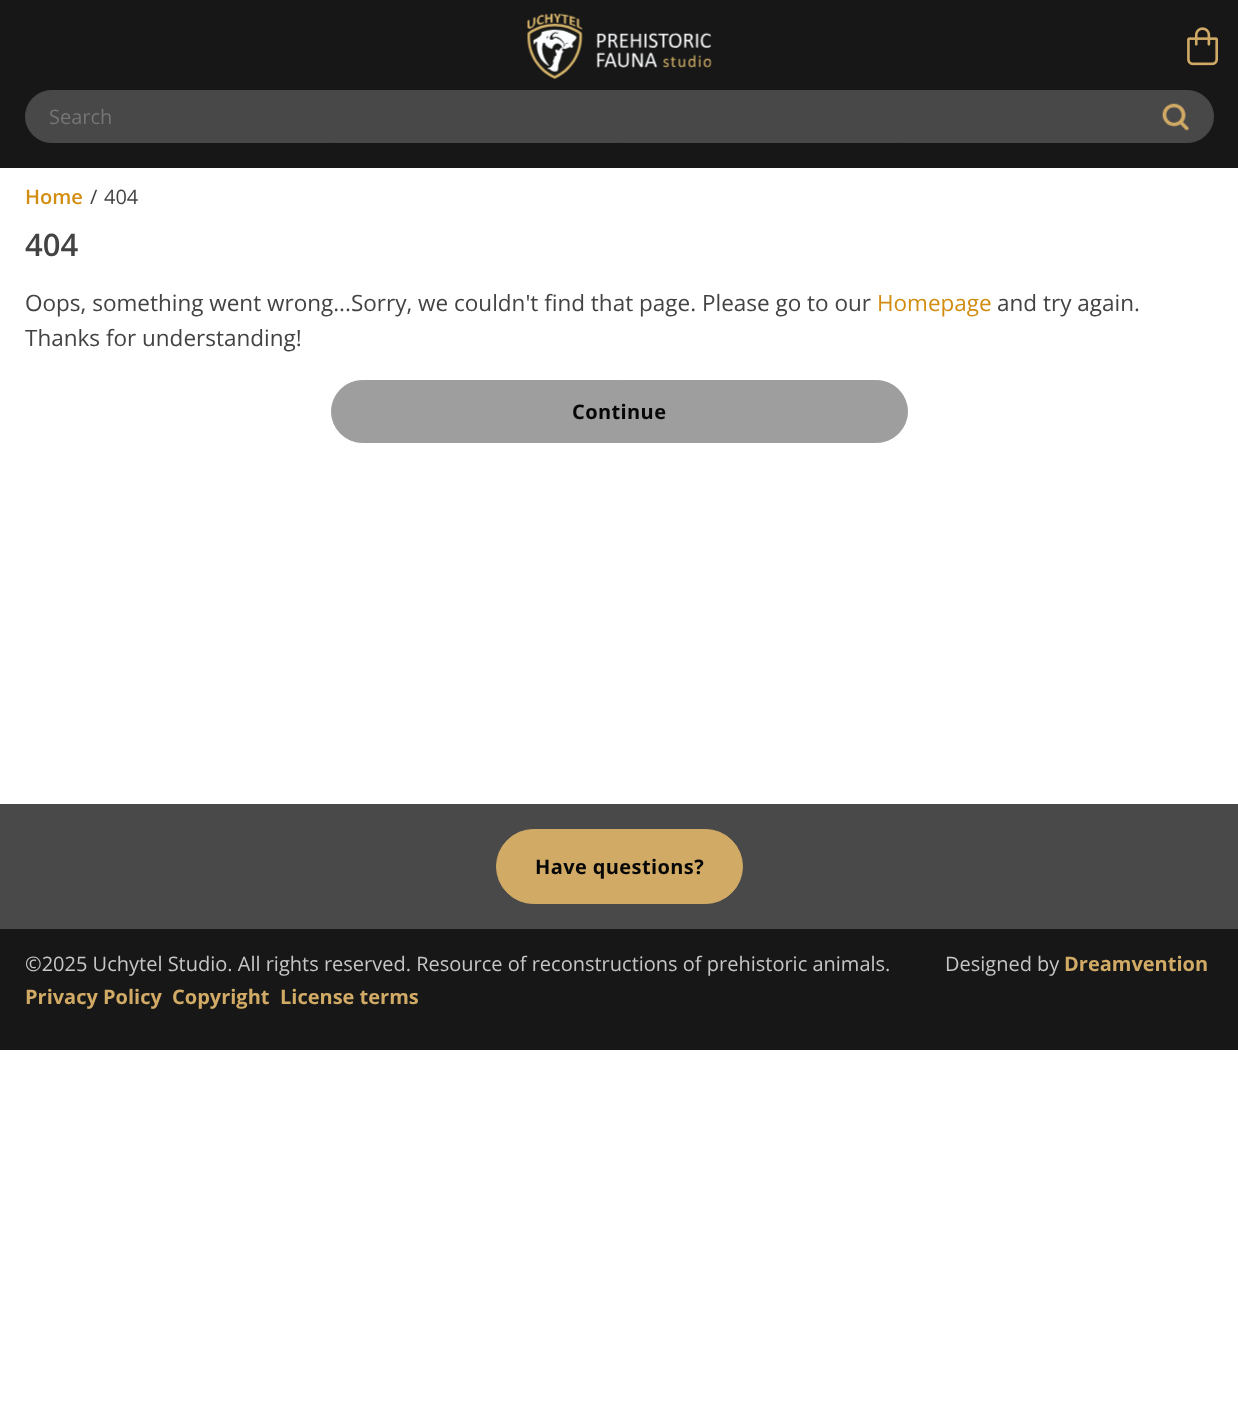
<!DOCTYPE html>
<meta charset="utf-8">
<style>body { margin: 0 } canvas { display: block }</style>
<canvas id="canvas" width="1238" height="1401"></canvas>
<img id="img1" src="images/1.png" hidden>
<img id="img2" src="images/2.png" hidden>
<img id="img3" src="images/3.png" hidden>
<script>
window.onload = function () {
    const canvas = document.getElementById('canvas');
    const context = canvas.getContext('2d');
    context.miterLimit = 4;
    context.fontKerning = 'normal';

    context.fillStyle = 'rgb(255, 255, 255)';
    context.fillRect(0, 0, 1238, 1401);
    context.fillStyle = 'rgb(23, 23, 23)';
    context.fillRect(0, 0, 1238, 168);
    context.drawImage(document.getElementById('img1'), 527, 13, 185, 66);
    context.drawImage(document.getElementById('img2'), 1187, 27, 31, 39);
    context.fillStyle = 'rgb(72, 72, 72)';
    context.beginPath();
    context.roundRect(25.5, 90.5, 1188, 52, 26);
    context.fill();
    context.strokeStyle = 'rgb(72, 72, 72)';
    context.stroke();
    context.drawImage(document.getElementById('img3'), 1162, 103, 27, 28);
    context.fillStyle = 'rgb(158, 158, 158)';
    context.beginPath();
    context.roundRect(331.5, 380.5, 576, 62, 31);
    context.fill();
    context.strokeStyle = 'rgb(158, 158, 158)';
    context.stroke();
    context.fillStyle = 'rgb(73, 73, 73)';
    context.fillRect(0, 804, 1238, 125);
    context.fillStyle = 'rgb(209, 171, 102)';
    context.beginPath();
    context.roundRect(496.5, 829.5, 246, 74, 37);
    context.fill();
    context.strokeStyle = 'rgb(209, 171, 102)';
    context.stroke();
    context.fillStyle = 'rgb(23, 23, 23)';
    context.fillRect(0, 929, 1238, 121);
    context.font = '20px Open Sans';
    context.fillStyle = 'rgb(117, 117, 117)';
    context.fillText('Search', 49, 124);
    context.font = '600 20px Open Sans';
    context.fillStyle = 'rgb(210, 141, 16)';
    context.fillText('Home', 25, 204);
    context.font = '20px Open Sans';
    context.fillStyle = 'rgb(67, 67, 67)';
    context.fillText('/', 90, 204);
    context.fillText('404', 104, 204);
    context.font = '600 31px Open Sans';
    context.fillText('404', 25, 256);
    context.font = '22.5px Open Sans';
    context.fillText('Oops, something went wrong...Sorry, we couldn\'t find that page. Please go to our', 25, 311);
    context.fillStyle = 'rgb(210, 141, 16)';
    context.fillText('Homepage', 877, 311);
    context.fillStyle = 'rgb(67, 67, 67)';
    context.fillText('and try again.', 997, 311);
    context.fillText('Thanks for understanding!', 25, 346);
    context.letterSpacing = '0.4px';
    context.font = 'bold 20px Open Sans';
    context.fillStyle = 'rgb(7, 7, 7)';
    context.fillText('Continue', 572, 419);
    context.fillText('Have questions?', 535, 874);
    context.letterSpacing = '0px';
    context.font = '20px Open Sans';
    context.fillStyle = 'rgb(198, 198, 198)';
    context.fillText('©2025 Uchytel Studio. All rights reserved. Resource of reconstructions of prehistoric animals.', 25, 971);
    context.font = 'bold 20px Open Sans';
    context.fillStyle = 'rgb(209, 171, 102)';
    context.fillText('Privacy Policy', 25, 1004);
    context.fillText('Copyright', 172, 1004);
    context.fillText('License terms', 280, 1004);
    context.font = '20px Open Sans';
    context.fillStyle = 'rgb(198, 198, 198)';
    context.fillText('Designed by', 945, 971);
    context.font = 'bold 20px Open Sans';
    context.fillStyle = 'rgb(209, 171, 102)';
    context.fillText('Dreamvention', 1064, 971);
};
</script>
